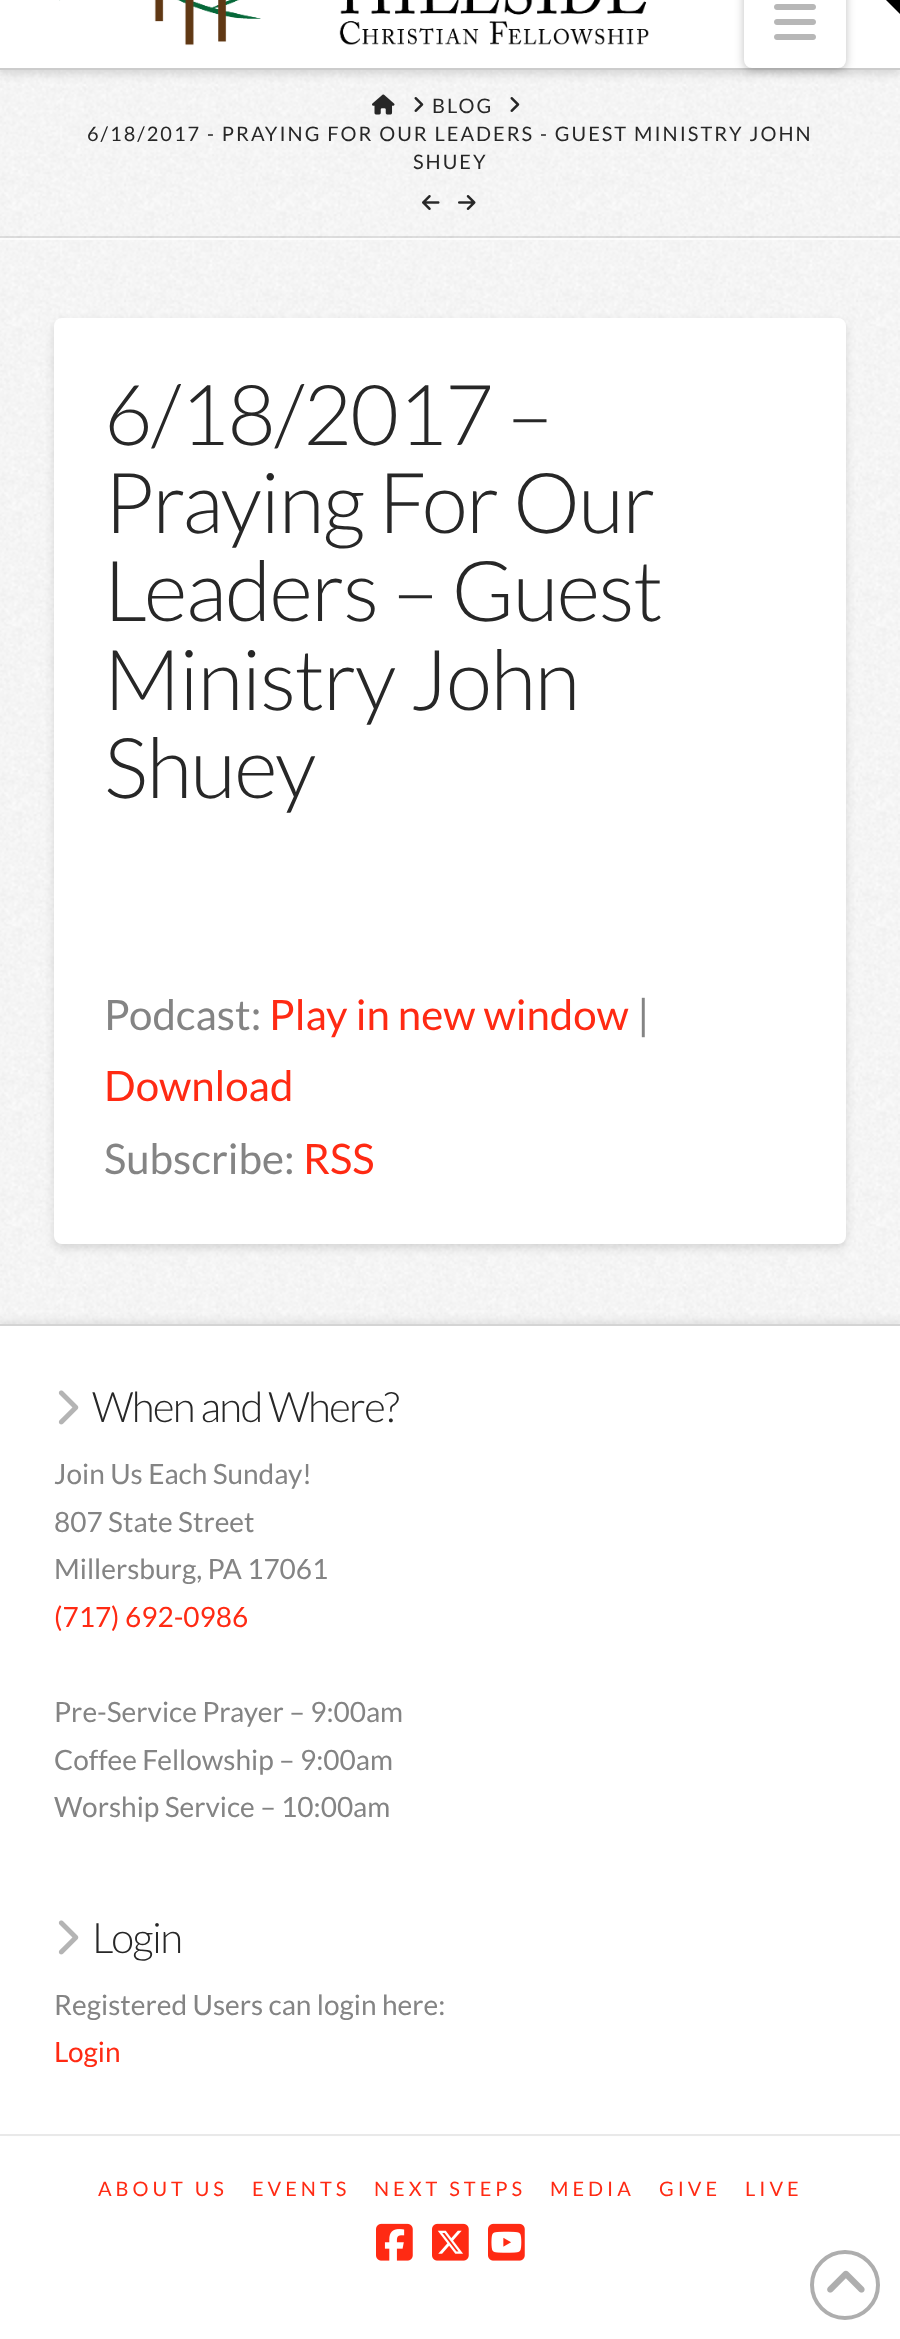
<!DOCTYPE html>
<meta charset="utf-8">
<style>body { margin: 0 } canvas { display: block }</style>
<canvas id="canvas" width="900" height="2339"></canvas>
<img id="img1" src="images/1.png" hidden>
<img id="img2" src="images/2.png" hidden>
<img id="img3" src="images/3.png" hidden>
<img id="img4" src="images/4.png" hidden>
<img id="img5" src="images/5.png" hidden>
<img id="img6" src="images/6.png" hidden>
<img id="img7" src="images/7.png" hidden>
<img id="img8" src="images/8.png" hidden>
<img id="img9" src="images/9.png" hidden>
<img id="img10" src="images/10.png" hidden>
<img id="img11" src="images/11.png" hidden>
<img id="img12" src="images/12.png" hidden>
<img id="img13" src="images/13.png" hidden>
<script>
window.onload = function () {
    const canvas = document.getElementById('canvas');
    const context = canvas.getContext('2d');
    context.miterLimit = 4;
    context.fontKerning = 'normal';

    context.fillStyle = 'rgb(255, 255, 255)';
    context.fillRect(0, 0, 900, 2339);
    context.drawImage(document.getElementById('img1'), 0, 70, 900, 1254);
    context.fillStyle = 'rgba(0, 0, 0, 0.13)';
    context.filter = 'blur(5px)';
    context.beginPath();
    context.rect(0, -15, 900, 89);
    context.fill();
    context.filter = 'none';
    context.fillStyle = 'rgb(255, 255, 255)';
    context.fillRect(0, 0, 900, 68);
    context.fillStyle = 'rgb(0, 0, 0)';
    context.beginPath();
    context.moveTo(900, -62);
    context.lineTo(900, 14);
    context.lineTo(862, -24);
    context.closePath();
    context.fill();
    context.fillStyle = 'rgb(204, 204, 204)';
    context.fillRect(0, 68, 900, 2);
    context.drawImage(document.getElementById('img2'), 59, 0, 590, 46);
    context.fillStyle = 'rgba(0, 0, 0, 0.25)';
    context.filter = 'blur(5px)';
    context.beginPath();
    context.roundRect(744, -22, 102, 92, 8);
    context.fill();
    context.filter = 'none';
    context.fillStyle = 'rgb(255, 255, 255)';
    context.beginPath();
    context.roundRect(744, -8, 102, 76, 8);
    context.fill();
    context.drawImage(document.getElementById('img3'), 774, 4, 42, 36);
    context.fillStyle = 'rgba(255, 255, 255, 0.71)';
    context.fillRect(0, 238, 900, 2);
    context.fillStyle = 'rgba(0, 0, 0, 0.1)';
    context.fillRect(0, 236, 900, 2);
    context.drawImage(document.getElementById('img4'), 372, 94, 23, 21);
    context.drawImage(document.getElementById('img5'), 414, 97, 10, 15);
    context.drawImage(document.getElementById('img6'), 510, 97, 10, 15);
    context.drawImage(document.getElementById('img7'), 422, 195, 18, 15);
    context.drawImage(document.getElementById('img8'), 458, 195, 18, 15);
    context.fillStyle = 'rgba(0, 0, 0, 0.13)';
    context.filter = 'blur(5px)';
    context.beginPath();
    context.roundRect(54, 322, 792, 926, 8);
    context.fill();
    context.filter = 'none';
    context.fillStyle = 'rgb(255, 255, 255)';
    context.beginPath();
    context.roundRect(54, 318, 792, 926, 8);
    context.fill();
    context.fillStyle = 'rgba(0, 0, 0, 0.07)';
    context.filter = 'blur(3.5px)';
    context.beginPath();
    context.rect(0, 1320, 900, 810);
    context.fill();
    context.filter = 'none';
    context.fillStyle = 'rgb(255, 255, 255)';
    context.fillRect(0, 1326, 900, 808);
    context.fillStyle = 'rgb(212, 212, 212)';
    context.fillRect(0, 1324, 900, 2);
    context.drawImage(document.getElementById('img9'), 58, 1390, 21, 35);
    context.drawImage(document.getElementById('img9'), 58, 1920, 21, 35);
    context.fillStyle = 'rgb(233, 233, 233)';
    context.fillRect(0, 2134, 900, 2);
    context.drawImage(document.getElementById('img10'), 376, 2223, 37, 38);
    context.drawImage(document.getElementById('img11'), 432, 2223, 37, 38);
    context.drawImage(document.getElementById('img12'), 488, 2223, 37, 38);
    context.beginPath();
    context.arc(845, 2285, 33, 0, 2 * Math.PI);
    context.strokeStyle = 'rgb(174, 174, 174)';
    context.lineWidth = 4;
    context.stroke();
    context.drawImage(document.getElementById('img13'), 827, 2270, 38, 23);
    context.letterSpacing = '2px';
    context.font = '20px Lato';
    context.fillStyle = 'rgb(39, 39, 39)';
    context.fillText('BLOG', 432, 113);
    context.fillText('6/18/2017 - PRAYING FOR OUR LEADERS - GUEST MINISTRY JOHN', 87, 141);
    context.fillText('SHUEY', 413, 169);
    context.letterSpacing = '-1.4px';
    context.font = '300 84px Lato';
    context.fillText('6/18/2017 –', 104, 445);
    context.fillText('Praying For Our', 104, 533);
    context.fillText('Leaders – Guest', 104, 621);
    context.fillText('Ministry John', 104, 710);
    context.fillText('Shuey', 104, 798);
    context.letterSpacing = '0px';
    context.font = '42px Lato';
    context.fillStyle = 'rgb(132, 132, 132)';
    context.fillText('Podcast:', 104, 1030);
    context.fillStyle = 'rgb(255, 42, 19)';
    context.fillText('Play in new window', 269, 1030);
    context.fillStyle = 'rgb(132, 132, 132)';
    context.fillText('|', 637, 1030);
    context.fillStyle = 'rgb(255, 42, 19)';
    context.fillText('Download', 104, 1101);
    context.fillStyle = 'rgb(132, 132, 132)';
    context.fillText('Subscribe:', 104, 1174);
    context.fillStyle = 'rgb(255, 42, 19)';
    context.fillText('RSS', 303, 1174);
    context.letterSpacing = '-1.6px';
    context.font = '300 42px Lato';
    context.fillStyle = 'rgb(39, 39, 39)';
    context.fillText('When and Where?', 92, 1422);
    context.letterSpacing = '0px';
    context.font = '28px Lato';
    context.fillStyle = 'rgb(132, 132, 132)';
    context.fillText('Join Us Each Sunday!', 54, 1484);
    context.fillText('807 State Street', 54, 1532);
    context.fillText('Millersburg, PA 17061', 54, 1579);
    context.fillStyle = 'rgb(255, 42, 19)';
    context.fillText('(717) 692-0986', 54, 1627);
    context.fillStyle = 'rgb(132, 132, 132)';
    context.fillText('Pre-Service Prayer – 9:00am', 54, 1722);
    context.fillText('Coffee Fellowship – 9:00am', 54, 1770);
    context.fillText('Worship Service – 10:00am', 54, 1817);
    context.letterSpacing = '-1.6px';
    context.font = '300 42px Lato';
    context.fillStyle = 'rgb(39, 39, 39)';
    context.fillText('Login', 92, 1953);
    context.letterSpacing = '0px';
    context.font = '28px Lato';
    context.fillStyle = 'rgb(132, 132, 132)';
    context.fillText('Registered Users can login here:', 54, 2015);
    context.fillStyle = 'rgb(255, 42, 19)';
    context.fillText('Login', 54, 2062);
    context.letterSpacing = '4px';
    context.font = '20px Lato';
    context.fillText('ABOUT US', 98, 2196);
    context.fillText('EVENTS', 252, 2196);
    context.fillText('NEXT STEPS', 374, 2196);
    context.fillText('MEDIA', 550, 2196);
    context.fillText('GIVE', 659, 2196);
    context.fillText('LIVE', 745, 2196);
};
</script>
